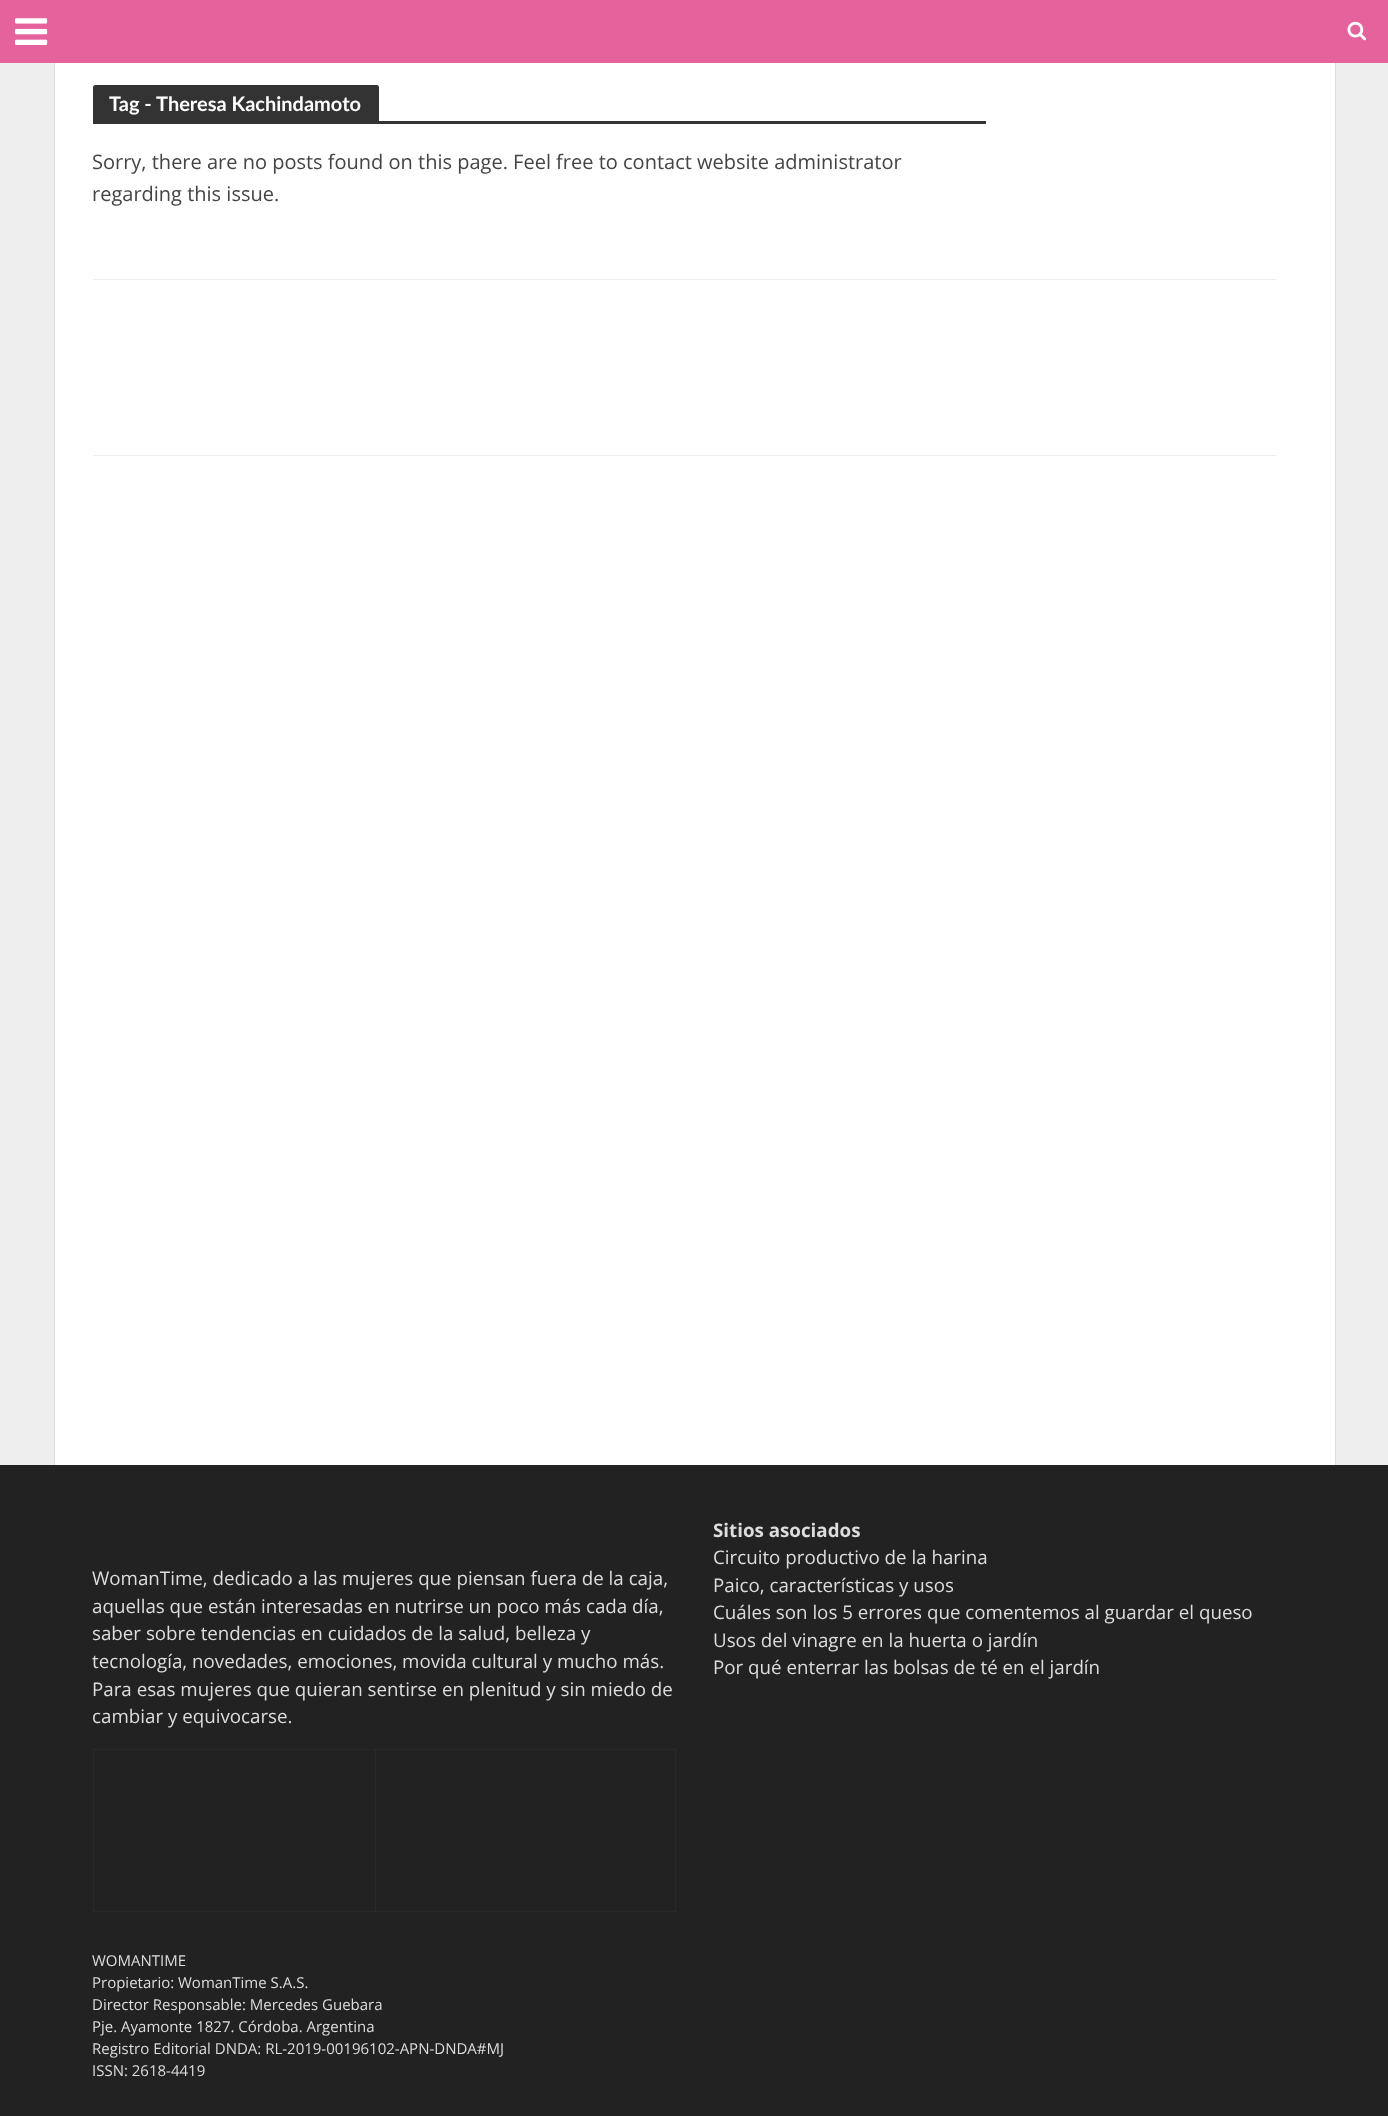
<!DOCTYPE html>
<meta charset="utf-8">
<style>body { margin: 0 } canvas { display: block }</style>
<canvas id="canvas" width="1388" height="2116"></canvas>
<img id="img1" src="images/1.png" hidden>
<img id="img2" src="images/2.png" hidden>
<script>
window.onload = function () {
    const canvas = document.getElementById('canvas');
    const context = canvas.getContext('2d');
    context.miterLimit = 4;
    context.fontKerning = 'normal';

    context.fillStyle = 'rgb(238, 238, 238)';
    context.fillRect(0, 0, 1388, 2116);
    context.fillStyle = 'rgb(34, 34, 34)';
    context.fillRect(0, 1465, 1388, 651);
    context.strokeStyle = 'rgba(68, 68, 68, 0.1)';
    context.strokeRect(54.5, 46.5, 1281, 1419);
    context.fillStyle = 'rgb(230, 98, 156)';
    context.fillRect(0, 0, 1388, 63);
    context.drawImage(document.getElementById('img1'), 15, 18, 33, 27);
    context.drawImage(document.getElementById('img2'), 1347, 21, 19, 20);
    context.fillStyle = 'rgb(255, 255, 255)';
    context.fillRect(55, 63, 1280, 1402);
    context.fillStyle = 'rgb(51, 51, 51)';
    context.beginPath();
    context.roundRect(93, 85, 286, 36, [2.5, 2.5, 0, 0]);
    context.fill();
    context.fillRect(93, 121, 893, 3);
    context.fillStyle = 'rgb(238, 238, 238)';
    context.fillRect(93, 279, 1183, 1);
    context.fillRect(93, 455, 1183, 1);
    context.fillStyle = 'rgb(41, 41, 41)';
    context.fillRect(93, 1911, 283, 1);
    context.fillRect(375, 1749, 1, 164);
    context.fillRect(375, 1911, 301, 1);
    context.fillStyle = 'rgb(50, 50, 50)';
    context.fillRect(375, 1911, 1, 1);
    context.fillStyle = 'rgb(41, 41, 41)';
    context.fillRect(675, 1749, 1, 164);
    context.fillStyle = 'rgb(46, 46, 46)';
    context.fillRect(675, 1911, 1, 1);
    context.fillStyle = 'rgb(41, 41, 41)';
    context.fillRect(93, 1749, 1, 164);
    context.fillStyle = 'rgb(46, 46, 46)';
    context.fillRect(93, 1911, 1, 1);
    context.fillStyle = 'rgb(41, 41, 41)';
    context.fillRect(93, 1749, 583, 1);
    context.fillStyle = 'rgb(46, 46, 46)';
    context.fillRect(375, 1749, 1, 1);
    context.fillRect(675, 1749, 1, 1);
    context.fillRect(93, 1749, 1, 1);
    context.font = 'bold 20px Lato';
    context.fillStyle = 'rgb(255, 255, 255)';
    context.fillText('Tag - Theresa Kachindamoto', 109, 111);
    context.font = '20px Open Sans';
    context.fillStyle = 'rgb(68, 68, 68)';
    context.fillText('Sorry, there are no posts found on this page. Feel free to contact website administrator', 92, 169);
    context.fillText('regarding this issue.', 92, 201);
    context.font = '18.75px Open Sans';
    context.fillStyle = 'rgb(221, 221, 221)';
    context.fillText('WomanTime, dedicado a las mujeres que piensan fuera de la caja,', 92, 1585);
    context.fillText('aquellas que están interesadas en nutrirse un poco más cada día,', 92, 1613);
    context.fillText('saber sobre tendencias en cuidados de la salud, belleza y', 92, 1640);
    context.fillText('tecnología, novedades, emociones, movida cultural y mucho más.', 92, 1668);
    context.fillText('Para esas mujeres que quieran sentirse en plenitud y sin miedo de', 92, 1696);
    context.fillText('cambiar y equivocarse.', 92, 1723);
    context.font = '15px Open Sans';
    context.fillText('WOMANTIME', 92, 1966);
    context.fillText('Propietario: WomanTime S.A.S.', 92, 1988);
    context.fillText('Director Responsable: Mercedes Guebara', 92, 2010);
    context.fillText('Pje. Ayamonte 1827. Córdoba. Argentina', 92, 2032);
    context.fillText('Registro Editorial DNDA: RL-2019-00196102-APN-DNDA#MJ', 92, 2054);
    context.fillText('ISSN: 2618-4419', 92, 2076);
    context.font = 'bold 18.75px Open Sans';
    context.fillText('Sitios asociados', 713, 1537);
    context.font = '18.75px Open Sans';
    context.fillText('Circuito productivo de la harina', 713, 1564);
    context.fillText('Paico, características y usos', 713, 1592);
    context.fillText('Cuáles son los 5 errores que comentemos al guardar el queso', 713, 1619);
    context.fillText('Usos del vinagre en la huerta o jardín', 713, 1647);
    context.fillText('Por qué enterrar las bolsas de té en el jardín', 713, 1674);
};
</script>
